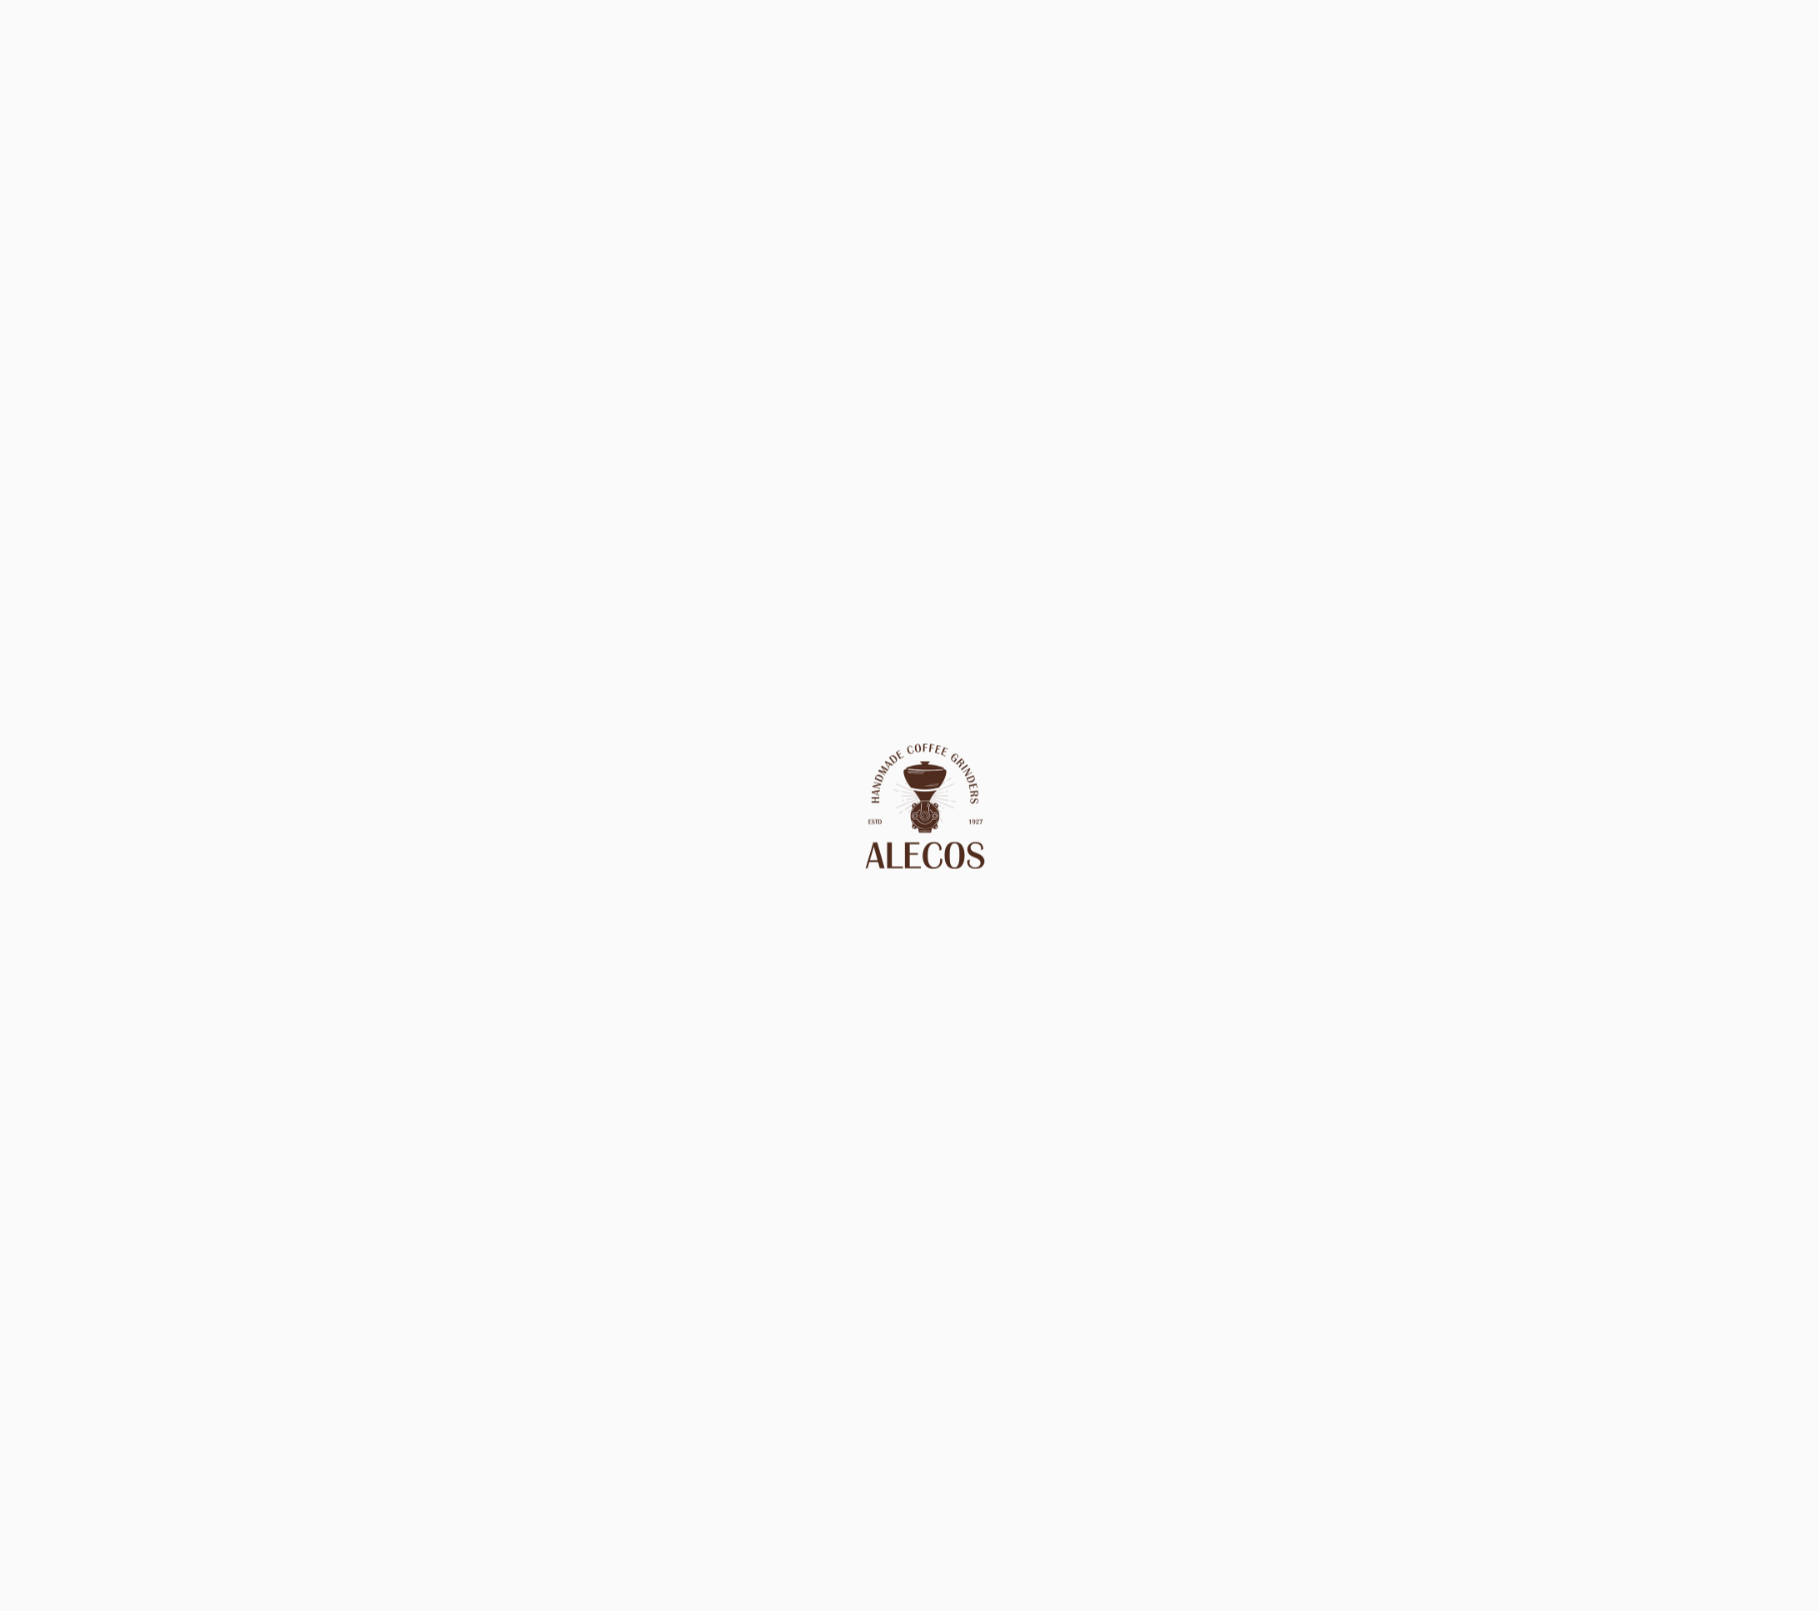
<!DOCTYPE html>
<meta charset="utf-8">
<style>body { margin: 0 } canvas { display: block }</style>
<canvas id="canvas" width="1819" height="1611"></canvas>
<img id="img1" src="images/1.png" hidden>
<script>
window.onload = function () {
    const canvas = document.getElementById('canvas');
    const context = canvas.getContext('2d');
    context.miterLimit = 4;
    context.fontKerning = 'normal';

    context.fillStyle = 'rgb(250, 250, 250)';
    context.fillRect(0, 0, 1819, 1611);
    context.drawImage(document.getElementById('img1'), 865, 743, 120, 126);
};
</script>
